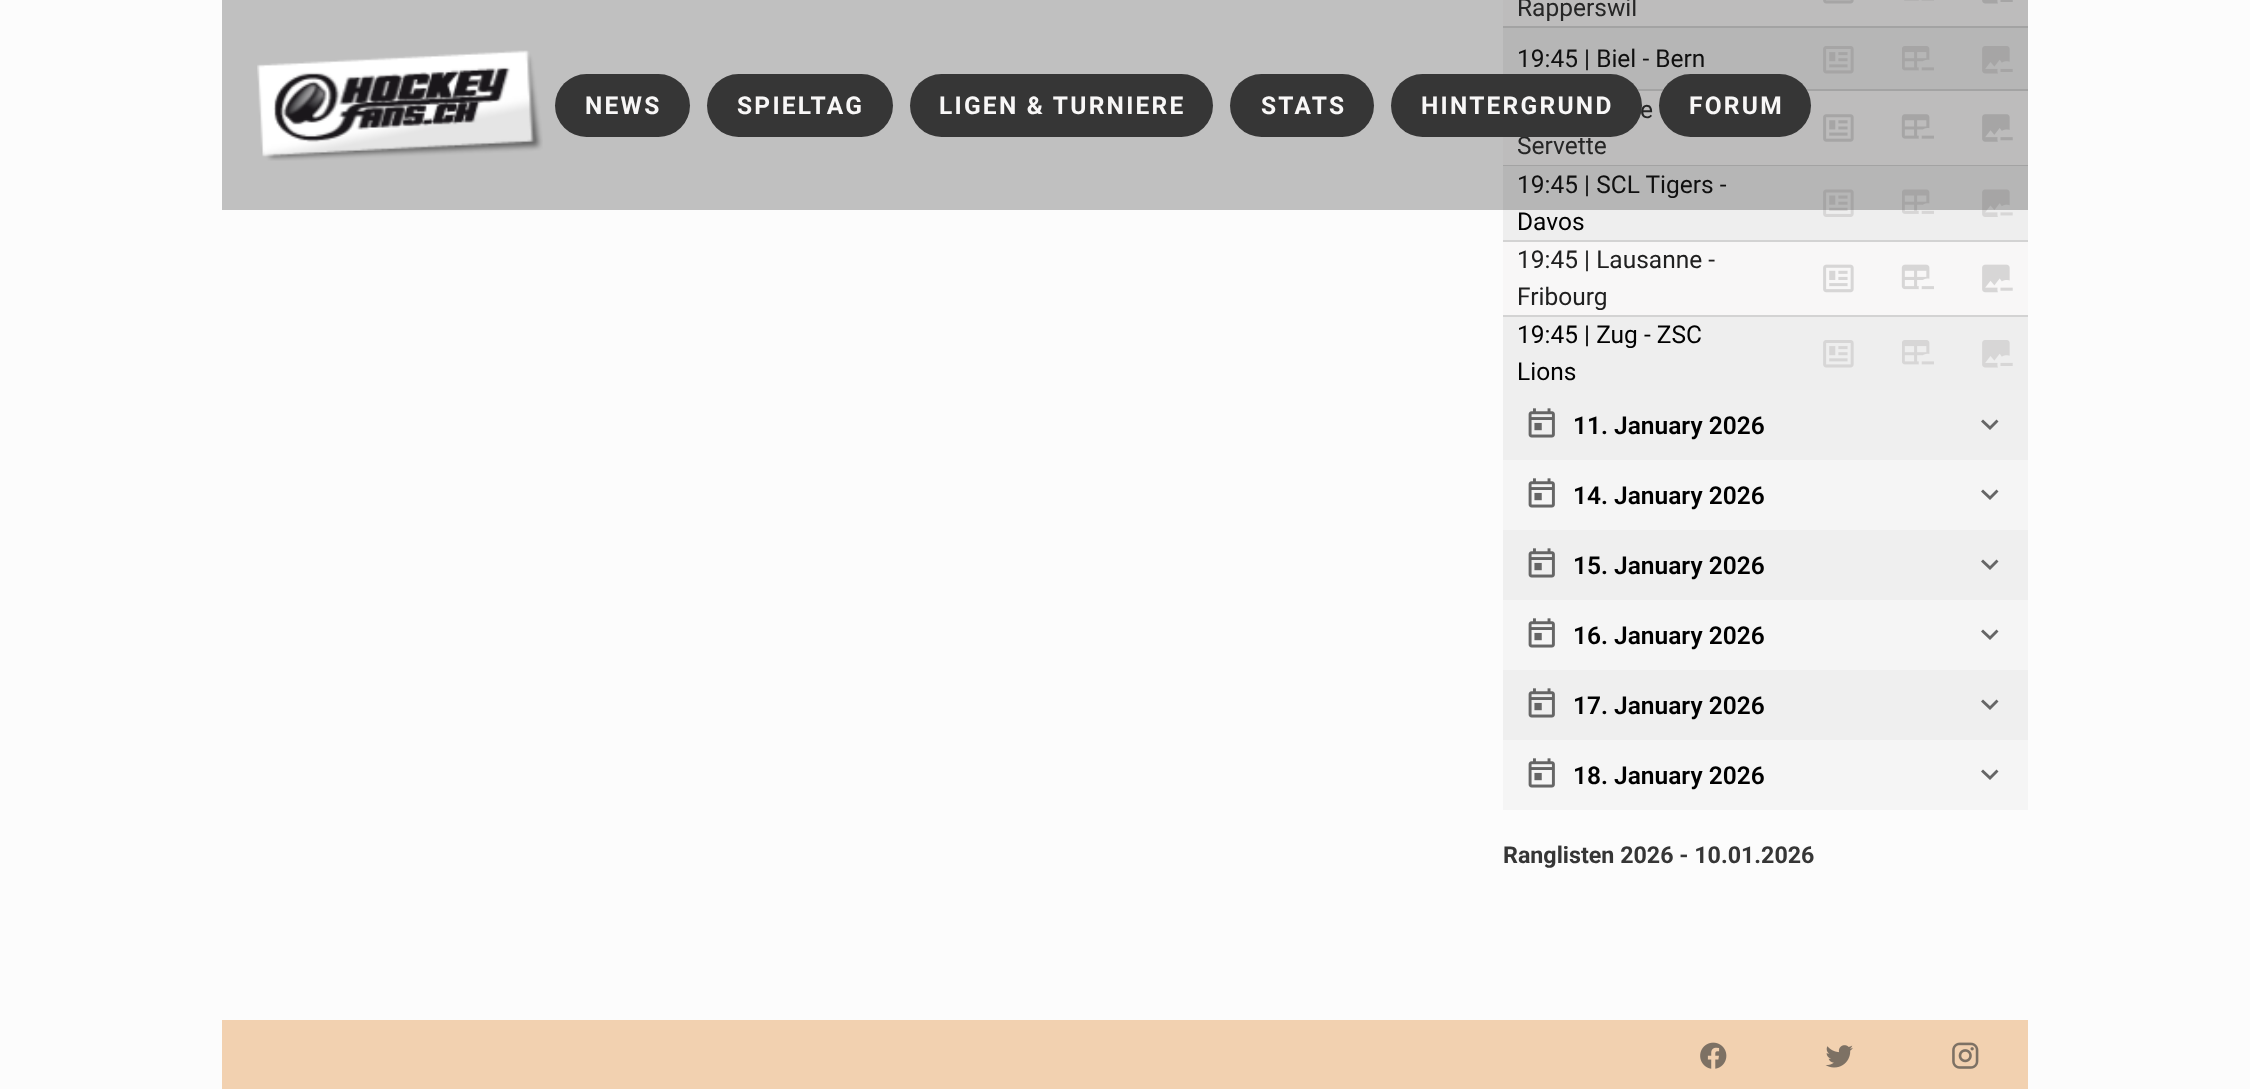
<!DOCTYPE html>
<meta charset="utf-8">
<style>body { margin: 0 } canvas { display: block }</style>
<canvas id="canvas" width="2250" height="1089"></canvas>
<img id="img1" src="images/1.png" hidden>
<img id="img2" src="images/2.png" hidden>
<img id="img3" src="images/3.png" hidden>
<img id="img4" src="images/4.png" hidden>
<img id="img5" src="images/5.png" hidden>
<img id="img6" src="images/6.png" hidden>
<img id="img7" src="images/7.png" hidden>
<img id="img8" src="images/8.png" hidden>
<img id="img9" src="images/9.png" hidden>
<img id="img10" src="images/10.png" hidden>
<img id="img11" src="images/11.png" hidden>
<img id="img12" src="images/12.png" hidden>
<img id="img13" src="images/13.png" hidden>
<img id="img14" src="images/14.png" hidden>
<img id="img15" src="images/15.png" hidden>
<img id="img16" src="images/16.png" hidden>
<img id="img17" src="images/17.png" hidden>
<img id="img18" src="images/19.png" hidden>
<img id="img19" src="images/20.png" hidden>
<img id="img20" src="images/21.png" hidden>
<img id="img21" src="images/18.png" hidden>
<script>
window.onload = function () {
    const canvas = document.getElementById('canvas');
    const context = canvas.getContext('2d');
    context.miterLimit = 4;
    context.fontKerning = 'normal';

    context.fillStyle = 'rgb(252, 252, 252)';
    context.fillRect(0, 0, 2250, 1089);
    context.fillStyle = 'rgb(248, 247, 247)';
    context.fillRect(1503, 0, 525, 315);
    context.fillStyle = 'rgb(211, 211, 211)';
    context.fillRect(1503, 26, 525, 2);
    context.drawImage(document.getElementById('img1'), 1823, 0, 31, 4);
    context.drawImage(document.getElementById('img2'), 1904, 0, 30, 1);
    context.drawImage(document.getElementById('img3'), 1982, 0, 31, 4);
    context.fillStyle = 'rgb(238, 238, 238)';
    context.fillRect(1503, 28, 525, 61);
    context.fillStyle = 'rgb(211, 211, 211)';
    context.fillRect(1806, 89, 222, 2);
    context.drawImage(document.getElementById('img4'), 1823, 46, 31, 28);
    context.fillRect(1637, 89, 27, 2);
    context.drawImage(document.getElementById('img5'), 1902, 46, 32, 25);
    context.drawImage(document.getElementById('img6'), 1982, 46, 31, 28);
    context.fillRect(1503, 165, 525, 1);
    context.drawImage(document.getElementById('img7'), 1823, 114, 31, 28);
    context.drawImage(document.getElementById('img8'), 1901, 114, 33, 25);
    context.drawImage(document.getElementById('img9'), 1982, 114, 31, 28);
    context.fillStyle = 'rgb(238, 238, 238)';
    context.fillRect(1503, 166, 525, 74);
    context.fillStyle = 'rgb(211, 211, 211)';
    context.fillRect(1503, 240, 525, 2);
    context.drawImage(document.getElementById('img10'), 1823, 189, 31, 28);
    context.drawImage(document.getElementById('img11'), 1902, 189, 32, 25);
    context.drawImage(document.getElementById('img12'), 1982, 189, 31, 28);
    context.fillRect(1503, 315, 525, 2);
    context.drawImage(document.getElementById('img13'), 1823, 264, 31, 29);
    context.drawImage(document.getElementById('img14'), 1901, 264, 33, 26);
    context.drawImage(document.getElementById('img15'), 1982, 264, 31, 29);
    context.fillStyle = 'rgb(238, 238, 238)';
    context.fillRect(1503, 317, 525, 73);
    context.drawImage(document.getElementById('img4'), 1823, 340, 31, 28);
    context.drawImage(document.getElementById('img5'), 1902, 340, 32, 25);
    context.drawImage(document.getElementById('img6'), 1982, 340, 31, 28);
    context.fillStyle = 'rgb(239, 239, 239)';
    context.fillRect(1503, 390, 525, 70);
    context.drawImage(document.getElementById('img16'), 1528, 408, 27, 30);
    context.fillStyle = 'rgb(102, 102, 102)';
    context.beginPath();
    context.moveTo(1983, 419.5);
    context.lineTo(1990, 426);
    context.lineTo(1996.5, 419.5);
    context.lineTo(1998.5, 421.5);
    context.lineTo(1990, 430);
    context.lineTo(1981, 421.5);
    context.closePath();
    context.fill();
    context.fillStyle = 'rgb(245, 245, 245)';
    context.fillRect(1503, 460, 525, 70);
    context.drawImage(document.getElementById('img17'), 1528, 478, 27, 30);
    context.fillStyle = 'rgb(102, 102, 102)';
    context.beginPath();
    context.moveTo(1983, 489.5);
    context.lineTo(1990, 496);
    context.lineTo(1996.5, 489.5);
    context.lineTo(1998.5, 491.5);
    context.lineTo(1990, 500);
    context.lineTo(1981, 491.5);
    context.closePath();
    context.fill();
    context.fillStyle = 'rgb(239, 239, 239)';
    context.fillRect(1503, 530, 525, 70);
    context.drawImage(document.getElementById('img16'), 1528, 548, 27, 30);
    context.fillStyle = 'rgb(102, 102, 102)';
    context.beginPath();
    context.moveTo(1983, 559.5);
    context.lineTo(1990, 566);
    context.lineTo(1996.5, 559.5);
    context.lineTo(1998.5, 561.5);
    context.lineTo(1990, 570);
    context.lineTo(1981, 561.5);
    context.closePath();
    context.fill();
    context.fillStyle = 'rgb(245, 245, 245)';
    context.fillRect(1503, 600, 525, 70);
    context.drawImage(document.getElementById('img17'), 1528, 618, 27, 30);
    context.fillStyle = 'rgb(102, 102, 102)';
    context.beginPath();
    context.moveTo(1983, 629.5);
    context.lineTo(1990, 636);
    context.lineTo(1996.5, 629.5);
    context.lineTo(1998.5, 631.5);
    context.lineTo(1990, 640);
    context.lineTo(1981, 631.5);
    context.closePath();
    context.fill();
    context.fillStyle = 'rgb(239, 239, 239)';
    context.fillRect(1503, 670, 525, 70);
    context.drawImage(document.getElementById('img16'), 1528, 688, 27, 30);
    context.fillStyle = 'rgb(102, 102, 102)';
    context.beginPath();
    context.moveTo(1983, 699.5);
    context.lineTo(1990, 706);
    context.lineTo(1996.5, 699.5);
    context.lineTo(1998.5, 701.5);
    context.lineTo(1990, 710);
    context.lineTo(1981, 701.5);
    context.closePath();
    context.fill();
    context.fillStyle = 'rgb(245, 245, 245)';
    context.fillRect(1503, 740, 525, 70);
    context.drawImage(document.getElementById('img17'), 1528, 758, 27, 30);
    context.fillStyle = 'rgb(102, 102, 102)';
    context.beginPath();
    context.moveTo(1983, 769.5);
    context.lineTo(1990, 776);
    context.lineTo(1996.5, 769.5);
    context.lineTo(1998.5, 771.5);
    context.lineTo(1990, 780);
    context.lineTo(1981, 771.5);
    context.closePath();
    context.fill();
    context.fillStyle = 'rgb(242, 209, 176)';
    context.fillRect(222, 1020, 1806, 69);
    context.drawImage(document.getElementById('img18'), 1700, 1042, 27, 27);
    context.drawImage(document.getElementById('img19'), 1825, 1045, 28, 23);
    context.drawImage(document.getElementById('img20'), 1952, 1042, 27, 27);
    context.font = '24.5px Roboto';
    context.fillStyle = 'rgb(32, 32, 32)';
    context.fillText('Rapperswil', 1517, 16);
    context.fillStyle = 'rgb(0, 0, 0)';
    context.fillText('19:45 | Biel - Bern', 1517, 67);
    context.fillStyle = 'rgb(32, 32, 32)';
    context.fillText('e', 1640, 118);
    context.fillText('Servette', 1517, 154);
    context.fillStyle = 'rgb(0, 0, 0)';
    context.fillText('19:45 | SCL Tigers -', 1517, 193);
    context.fillText('Davos', 1517, 230);
    context.fillStyle = 'rgb(32, 32, 32)';
    context.fillText('19:45 | Lausanne -', 1517, 268);
    context.fillText('Fribourg', 1517, 305);
    context.fillStyle = 'rgb(0, 0, 0)';
    context.fillText('19:45 | Zug - ZSC', 1517, 343);
    context.fillText('Lions', 1517, 380);
    context.font = '600 24.5px Roboto';
    context.fillText('11. January 2026', 1573, 434);
    context.fillText('14. January 2026', 1573, 504);
    context.fillText('15. January 2026', 1573, 574);
    context.fillText('16. January 2026', 1573, 644);
    context.fillText('17. January 2026', 1573, 714);
    context.fillText('18. January 2026', 1573, 784);
    context.font = 'bold 23.25px Roboto';
    context.fillStyle = 'rgb(54, 54, 54)';
    context.fillText('Ranglisten 2026 - 10.01.2026', 1503, 863);
    context.fillStyle = 'rgba(54, 54, 54, 0.3)';
    context.fillRect(222, 0, 1806, 210);
    context.drawImage(document.getElementById('img21'), 257, 50, 286, 111);
    context.fillStyle = 'rgb(54, 54, 54)';
    context.beginPath();
    context.roundRect(555, 74, 135, 63, 31.5);
    context.fill();
    context.letterSpacing = '2.25px';
    context.font = 'bold 24.5px Roboto';
    context.fillStyle = 'rgb(248, 247, 247)';
    context.fillText('NEWS', 585, 114);
    context.fillStyle = 'rgb(54, 54, 54)';
    context.beginPath();
    context.roundRect(707, 74, 186, 63, 31.5);
    context.fill();
    context.fillStyle = 'rgb(248, 247, 247)';
    context.fillText('SPIELTAG', 737, 114);
    context.fillStyle = 'rgb(54, 54, 54)';
    context.beginPath();
    context.roundRect(910, 74, 303, 63, 31.5);
    context.fill();
    context.fillStyle = 'rgb(248, 247, 247)';
    context.fillText('LIGEN & TURNIERE', 939, 114);
    context.fillStyle = 'rgb(54, 54, 54)';
    context.beginPath();
    context.roundRect(1230, 74, 144, 63, 31.5);
    context.fill();
    context.fillStyle = 'rgb(248, 247, 247)';
    context.fillText('STATS', 1261, 114);
    context.fillStyle = 'rgb(54, 54, 54)';
    context.beginPath();
    context.roundRect(1391, 74, 251, 63, 31.5);
    context.fill();
    context.fillStyle = 'rgb(248, 247, 247)';
    context.fillText('HINTERGRUND', 1421, 114);
    context.fillStyle = 'rgb(54, 54, 54)';
    context.beginPath();
    context.roundRect(1659, 74, 152, 63, 31.5);
    context.fill();
    context.fillStyle = 'rgb(248, 247, 247)';
    context.fillText('FORUM', 1689, 114);
};
</script>
